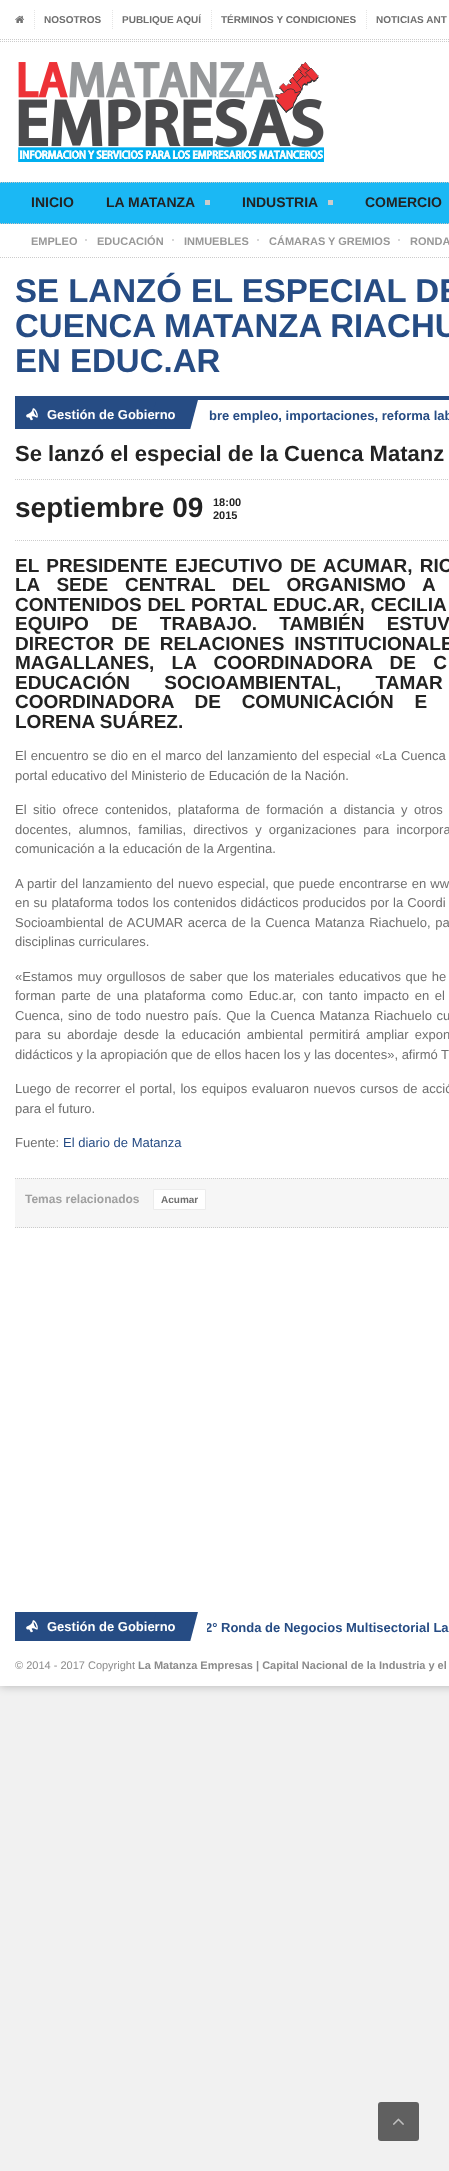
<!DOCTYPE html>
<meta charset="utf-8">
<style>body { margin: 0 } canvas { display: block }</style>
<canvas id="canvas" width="449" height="2171"></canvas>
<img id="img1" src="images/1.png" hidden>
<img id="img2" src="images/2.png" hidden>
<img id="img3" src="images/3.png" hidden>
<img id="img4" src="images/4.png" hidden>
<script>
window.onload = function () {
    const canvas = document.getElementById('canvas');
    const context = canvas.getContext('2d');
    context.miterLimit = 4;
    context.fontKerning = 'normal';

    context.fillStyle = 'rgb(241, 241, 241)';
    context.fillRect(0, 0, 449, 2171);
    context.fillStyle = 'rgba(0, 0, 0, 0.26)';
    context.filter = 'blur(5px)';
    context.beginPath();
    context.rect(0, 0, 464, 1686);
    context.fill();
    context.filter = 'none';
    context.fillStyle = 'rgb(255, 255, 255)';
    context.fillRect(0, 0, 449, 1686);
    context.beginPath();
    context.moveTo(34.5, 10);
    context.lineTo(34.5, 29);
    context.strokeStyle = 'rgb(229, 229, 229)';
    context.setLineDash([1, 1]);
    context.stroke();
    context.drawImage(document.getElementById('img1'), 15, 15, 10, 8);
    context.beginPath();
    context.moveTo(112.5, 10);
    context.lineTo(112.5, 29);
    context.stroke();
    context.beginPath();
    context.moveTo(211.5, 10);
    context.lineTo(211.5, 29);
    context.stroke();
    context.beginPath();
    context.moveTo(366.5, 10);
    context.lineTo(366.5, 29);
    context.stroke();
    context.beginPath();
    context.moveTo(0, 39.5);
    context.lineTo(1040, 39.5);
    context.strokeStyle = 'rgb(204, 204, 204)';
    context.stroke();
    context.beginPath();
    context.moveTo(0, 41.5);
    context.lineTo(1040, 41.5);
    context.stroke();
    context.drawImage(document.getElementById('img2'), 18, 62, 306, 100);
    context.fillStyle = 'rgb(27, 184, 244)';
    context.fillRect(0, 182, 448, 42);
    context.beginPath();
    context.moveTo(0, 182.5);
    context.lineTo(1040, 182.5);
    context.strokeStyle = 'rgb(197, 197, 197)';
    context.stroke();
    context.beginPath();
    context.moveTo(0, 223.5);
    context.lineTo(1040, 223.5);
    context.stroke();
    context.fillStyle = 'rgb(204, 204, 204)';
    context.fillRect(205, 200, 5, 5);
    context.fillRect(328, 200, 5, 5);
    context.fillStyle = 'rgb(27, 184, 244)';
    context.fillRect(448, 183, 1, 40);
    context.beginPath();
    context.moveTo(0, 257.5);
    context.lineTo(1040, 257.5);
    context.strokeStyle = 'rgb(204, 204, 204)';
    context.stroke();
    context.fillStyle = 'rgb(214, 214, 214)';
    context.fillRect(85, 239, 2, 2);
    context.fillRect(172, 239, 2, 2);
    context.fillRect(257, 239, 2, 2);
    context.fillRect(398, 239, 2, 2);
    context.fillStyle = 'rgb(38, 76, 132)';
    context.fillRect(15, 396, 434, 4);
    context.fillRect(15, 400, 155, 29);
    context.drawImage(document.getElementById('img3'), 26, 408, 12, 13);
    context.save();
    context.beginPath();
    context.rect(15, 400, 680, 29);
    context.clip();
    context.beginPath();
    context.moveTo(160, 386);
    context.lineTo(199, 396);
    context.lineTo(189, 434);
    context.lineTo(150, 424);
    context.closePath();
    context.fill();
    context.restore();
    context.beginPath();
    context.moveTo(15, 479.5);
    context.lineTo(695, 479.5);
    context.stroke();
    context.beginPath();
    context.moveTo(15, 540.5);
    context.lineTo(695, 540.5);
    context.stroke();
    context.fillStyle = 'rgb(246, 246, 246)';
    context.fillRect(15, 1178, 434, 50);
    context.beginPath();
    context.moveTo(15, 1178.5);
    context.lineTo(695, 1178.5);
    context.stroke();
    context.beginPath();
    context.moveTo(15, 1227.5);
    context.lineTo(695, 1227.5);
    context.stroke();
    context.fillStyle = 'rgb(255, 255, 255)';
    context.beginPath();
    context.rect(153.5, 1189.5, 52, 20);
    context.fill();
    context.strokeStyle = 'rgb(236, 236, 236)';
    context.setLineDash([]);
    context.stroke();
    context.fillStyle = 'rgb(38, 76, 132)';
    context.fillRect(15, 1612, 155, 29);
    context.drawImage(document.getElementById('img3'), 26, 1620, 12, 13);
    context.save();
    context.beginPath();
    context.rect(15, 1612, 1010, 29);
    context.clip();
    context.beginPath();
    context.moveTo(160, 1598);
    context.lineTo(199, 1608);
    context.lineTo(189, 1646);
    context.lineTo(150, 1636);
    context.closePath();
    context.fill();
    context.restore();
    context.fillStyle = 'rgb(96, 96, 96)';
    context.beginPath();
    context.roundRect(378, 2102, 41, 39, 3);
    context.fill();
    context.drawImage(document.getElementById('img4'), 393, 2118, 11, 7);
    context.font = 'bold 10px Liberation Sans';
    context.fillStyle = 'rgb(111, 111, 111)';
    context.fillText('NOSOTROS', 44, 23);
    context.fillText('PUBLIQUE AQUÍ', 122, 23);
    context.fillText('TÉRMINOS Y CONDICIONES', 221, 23);
    context.fillText('NOTICIAS ANT', 376, 23);
    context.font = 'bold 14px Liberation Sans';
    context.fillStyle = 'rgb(35, 35, 35)';
    context.fillText('INICIO', 31, 207);
    context.fillText('LA MATANZA', 106, 207);
    context.fillText('INDUSTRIA', 242, 207);
    context.fillText('COMERCIO', 365, 207);
    context.font = 'bold 11px Liberation Sans';
    context.fillStyle = 'rgb(152, 152, 152)';
    context.fillText('EMPLEO', 31, 245);
    context.fillText('EDUCACIÓN', 97, 245);
    context.fillText('INMUEBLES', 184, 245);
    context.fillText('CÁMARAS Y GREMIOS', 269, 245);
    context.fillText('RONDA', 410, 245);
    context.font = 'bold 33px Liberation Sans';
    context.fillStyle = 'rgb(38, 76, 132)';
    context.fillText('SE LANZÓ EL ESPECIAL DE', 15, 302);
    context.fillText('CUENCA MATANZA RIACHU', 15, 337);
    context.fillText('EN EDUC.AR', 15, 372);
    context.font = 'bold 13px Liberation Sans';
    context.fillStyle = 'rgb(255, 255, 255)';
    context.fillText('Gestión de Gobierno', 47, 419);
    context.fillStyle = 'rgb(38, 76, 132)';
    context.fillText('bre empleo, importaciones, reforma lab', 209, 420);
    context.font = 'bold 22px Liberation Sans';
    context.fillStyle = 'rgb(35, 35, 35)';
    context.fillText('Se lanzó el especial de la Cuenca Matanz', 15, 461);
    context.font = 'bold 28px Liberation Sans';
    context.fillText('septiembre 09', 15, 517);
    context.font = 'bold 11px Liberation Sans';
    context.fillText('18:00', 213, 506);
    context.fillText('2015', 213, 519);
    context.wordSpacing = '2px';
    context.font = 'bold 19px Liberation Sans';
    context.fillText('EL PRESIDENTE EJECUTIVO DE ACUMAR, RIC', 15, 572);
    context.wordSpacing = '11.5px';
    context.fillText('LA SEDE CENTRAL DEL ORGANISMO A', 15, 591);
    context.wordSpacing = '0.5px';
    context.fillText('CONTENIDOS DEL PORTAL EDUC.AR, CECILIA', 15, 611);
    context.wordSpacing = '17px';
    context.fillText('EQUIPO DE TRABAJO. TAMBIÉN ESTUV', 15, 630);
    context.wordSpacing = '4.5px';
    context.fillText('DIRECTOR DE RELACIONES INSTITUCIONALE', 15, 650);
    context.wordSpacing = '12px';
    context.fillText('MAGALLANES, LA COORDINADORA DE C', 15, 669);
    context.wordSpacing = '29px';
    context.fillText('EDUCACIÓN SOCIOAMBIENTAL, TAMAR', 15, 689);
    context.wordSpacing = '15.5px';
    context.fillText('COORDINADORA DE COMUNICACIÓN E', 15, 708);
    context.wordSpacing = '0px';
    context.fillText('LORENA SUÁREZ.', 15, 728);
    context.wordSpacing = '0.6px';
    context.font = '13px Liberation Sans';
    context.fillStyle = 'rgb(111, 111, 111)';
    context.fillText('El encuentro se dio en el marco del lanzamiento del especial «La Cuenca', 15, 760);
    context.wordSpacing = '0px';
    context.fillText('portal educativo del Ministerio de Educación de la Nación.', 15, 780);
    context.wordSpacing = '2.75px';
    context.fillText('El sitio ofrece contenidos, plataforma de formación a distancia y otros', 15, 814);
    context.wordSpacing = '3.5px';
    context.fillText('docentes, alumnos, familias, directivos y organizaciones para incorpora', 15, 834);
    context.wordSpacing = '0px';
    context.fillText('comunicación a la educación de la Argentina.', 15, 853);
    context.wordSpacing = '0.5px';
    context.fillText('A partir del lanzamiento del nuevo especial, que puede encontrarse en ww', 15, 888);
    context.fillText('en su plataforma todos los contenidos didácticos producidos por la Coordi', 15, 907);
    context.wordSpacing = '1px';
    context.fillText('Socioambiental de ACUMAR acerca de la Cuenca Matanza Riachuelo, pa', 15, 927);
    context.wordSpacing = '0px';
    context.fillText('disciplinas curriculares.', 15, 946);
    context.wordSpacing = '1px';
    context.fillText('«Estamos muy orgullosos de saber que los materiales educativos que he', 15, 981);
    context.wordSpacing = '2.1px';
    context.fillText('forman parte de una plataforma como Educ.ar, con tanto impacto en el', 15, 1000);
    context.wordSpacing = '1px';
    context.fillText('Cuenca, sino de todo nuestro país. Que la Cuenca Matanza Riachuelo cu', 15, 1020);
    context.wordSpacing = '2.5px';
    context.fillText('para su abordaje desde la educación ambiental permitirá ampliar expon', 15, 1039);
    context.wordSpacing = '0px';
    context.fillText('didácticos y la apropiación que de ellos hacen los y las docentes», afirmó T', 15, 1059);
    context.wordSpacing = '1px';
    context.fillText('Luego de recorrer el portal, los equipos evaluaron nuevos cursos de acció', 15, 1093);
    context.wordSpacing = '0px';
    context.fillText('para el futuro.', 15, 1113);
    context.fillText('Fuente:', 15, 1147);
    context.fillStyle = 'rgb(38, 76, 132)';
    context.fillText('El diario de Matanza', 63, 1147);
    context.font = 'bold 12px Liberation Sans';
    context.fillStyle = 'rgb(160, 160, 160)';
    context.fillText('Temas relacionados', 25, 1203);
    context.font = 'bold 10px Liberation Sans';
    context.fillStyle = 'rgb(111, 111, 111)';
    context.fillText('Acumar', 161, 1203);
    context.font = 'bold 13px Liberation Sans';
    context.fillStyle = 'rgb(255, 255, 255)';
    context.fillText('Gestión de Gobierno', 47, 1631);
    context.save();
    context.beginPath();
    context.rect(207, 1618, 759, 20);
    context.clip();
    context.fillStyle = 'rgb(38, 76, 132)';
    context.fillText('2° Ronda de Negocios Multisectorial La', 205, 1632);
    context.restore();
    context.font = '11px Liberation Sans';
    context.fillStyle = 'rgb(139, 139, 139)';
    context.fillText('© 2014 - 2017 Copyright', 15, 1669);
    context.font = 'bold 11px Liberation Sans';
    context.fillText('La Matanza Empresas | Capital Nacional de la Industria y el', 138, 1669);
};
</script>
